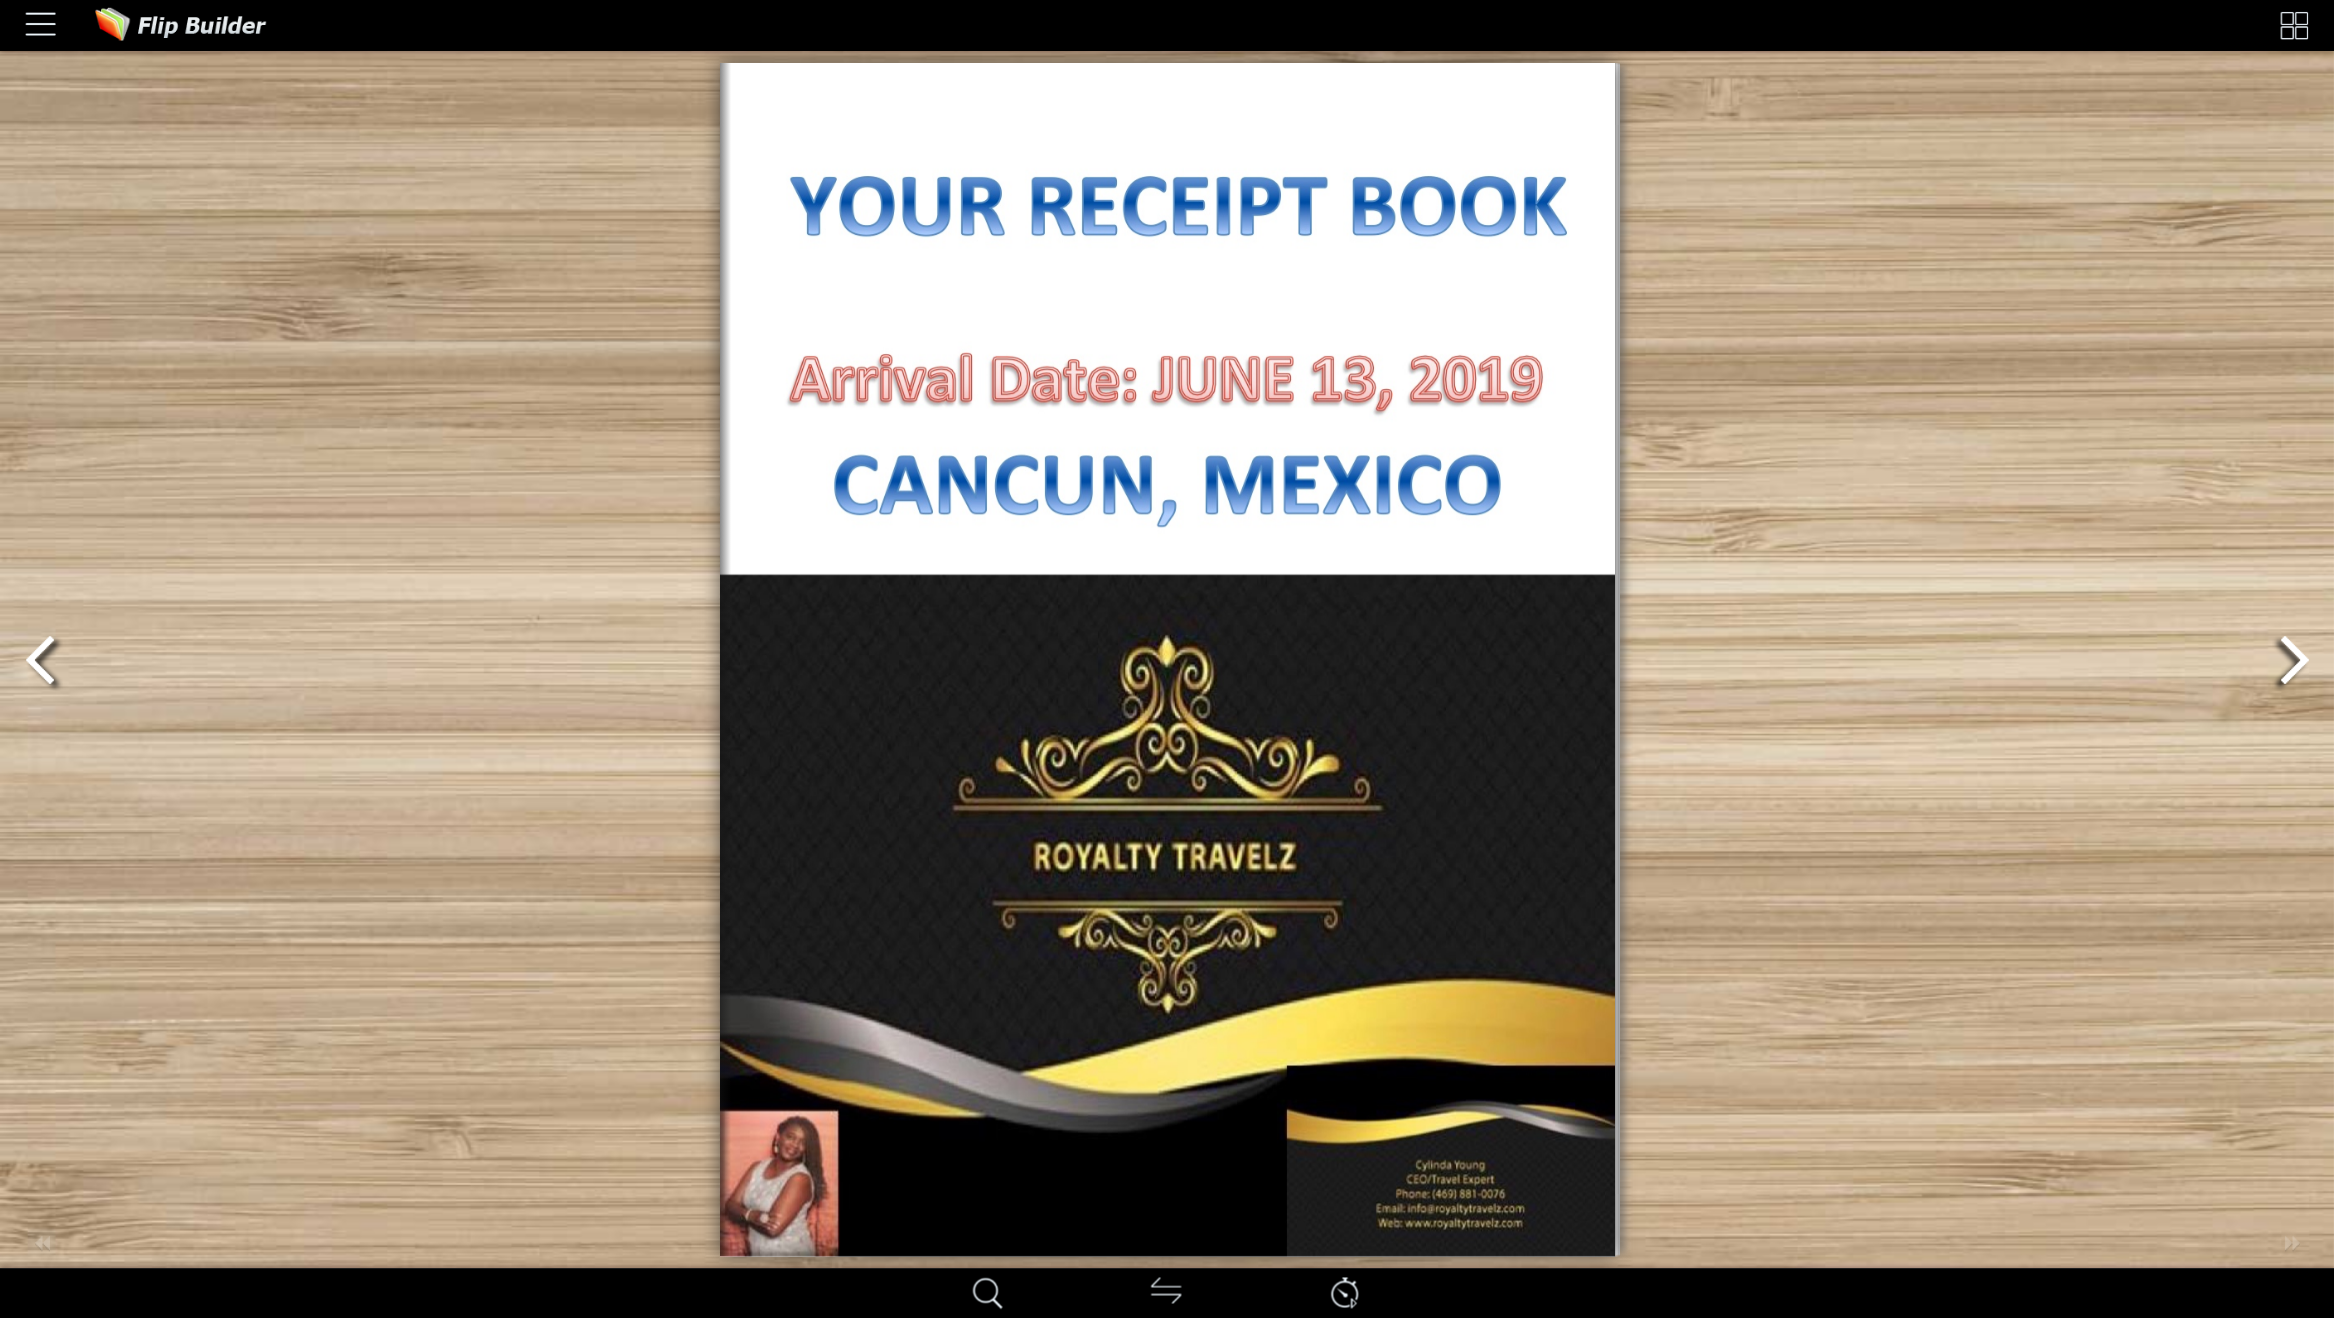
<!DOCTYPE html>
<meta charset="utf-8">
<style>body { margin: 0 } canvas { display: block }</style>
<canvas id="canvas" width="2334" height="1318"></canvas>
<img id="img1" src="images/10.png" hidden>
<img id="img2" src="images/5.png" hidden>
<img id="img3" src="images/6.png" hidden>
<img id="img4" src="images/7.png" hidden>
<img id="img5" src="images/8.png" hidden>
<img id="img6" src="images/1.png" hidden>
<img id="img7" src="images/2.png" hidden>
<img id="img8" src="images/3.png" hidden>
<img id="img9" src="images/9.png" hidden>
<img id="img10" src="images/4.png" hidden>
<img id="img11" src="images/11.png" hidden>
<img id="img12" src="images/12.png" hidden>
<img id="img13" src="images/13.png" hidden>
<img id="img14" src="images/14.png" hidden>
<img id="img15" src="images/15.png" hidden>
<img id="img16" src="images/16.png" hidden>
<img id="img17" src="images/17.png" hidden>
<script>
window.onload = function () {
    const canvas = document.getElementById('canvas');
    const context = canvas.getContext('2d');
    context.miterLimit = 4;
    context.fontKerning = 'normal';
    let gradient;

    context.fillStyle = 'rgb(255, 255, 255)';
    context.fillRect(0, 0, 2334, 1318);
    context.drawImage(document.getElementById('img1'), 0, 51, 2334, 1217);
    context.fillStyle = 'rgba(40, 0, 0, 0.5)';
    context.filter = 'blur(3px)';
    context.beginPath();
    context.rect(0, 0, 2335, 51);
    context.fill();
    context.filter = 'none';
    context.fillStyle = 'rgba(125, 125, 125, 0.7)';
    context.filter = 'blur(3.5px)';
    context.beginPath();
    context.rect(1618, 66, 6, 1187);
    context.fill();
    context.filter = 'none';
    context.fillStyle = 'rgb(204, 204, 204)';
    context.fillRect(1619, 125, 1, 1069);
    context.drawImage(document.getElementById('img2'), 720, 1255, 895, 2);
    context.drawImage(document.getElementById('img3'), 1615, 63, 5, 62);
    context.drawImage(document.getElementById('img4'), 1615, 125, 4, 1069);
    context.drawImage(document.getElementById('img5'), 1614, 1194, 6, 63);
    context.fillStyle = 'rgba(40, 40, 40, 0.7)';
    context.filter = 'blur(9.5px)';
    context.beginPath();
    context.rect(720, 63, 895, 1193);
    context.fill();
    context.filter = 'none';
    context.fillStyle = 'rgb(0, 0, 0)';
    context.fillRect(0, 0, 2334, 51);
    context.drawImage(document.getElementById('img6'), 25, 12, 31, 24);
    context.drawImage(document.getElementById('img7'), 95, 7, 172, 34);
    context.drawImage(document.getElementById('img8'), 2280, 11, 29, 29);
    context.drawImage(document.getElementById('img9'), 720, 1255, 895, 2);
    context.drawImage(document.getElementById('img10'), 720, 63, 895, 1194);
    gradient = context.createLinearGradient(720, 659, 731, 659);
    gradient.addColorStop(0, 'rgba(20, 20, 20, 0.5)');
    gradient.addColorStop(1, 'rgba(20, 20, 20, 0)');
    context.fillStyle = gradient;
    context.fillRect(720, 63, 11, 1193);
    context.drawImage(document.getElementById('img11'), 26, 636, 37, 55);
    context.drawImage(document.getElementById('img12'), 2272, 636, 37, 55);
    context.drawImage(document.getElementById('img13'), 35, 1236, 15, 16);
    context.drawImage(document.getElementById('img14'), 2285, 1236, 15, 16);
    context.fillStyle = 'rgba(40, 0, 0, 0.5)';
    context.filter = 'blur(3px)';
    context.beginPath();
    context.rect(0, 1268, 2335, 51);
    context.fill();
    context.filter = 'none';
    context.fillStyle = 'rgb(0, 0, 0)';
    context.fillRect(0, 1269, 2334, 49);
    context.fillStyle = 'rgb(30, 30, 30)';
    context.fillRect(0, 1268, 2334, 1);
    context.drawImage(document.getElementById('img15'), 972, 1277, 31, 33);
    context.drawImage(document.getElementById('img16'), 1150, 1277, 32, 27);
    context.drawImage(document.getElementById('img17'), 1330, 1277, 29, 32);
};
</script>
